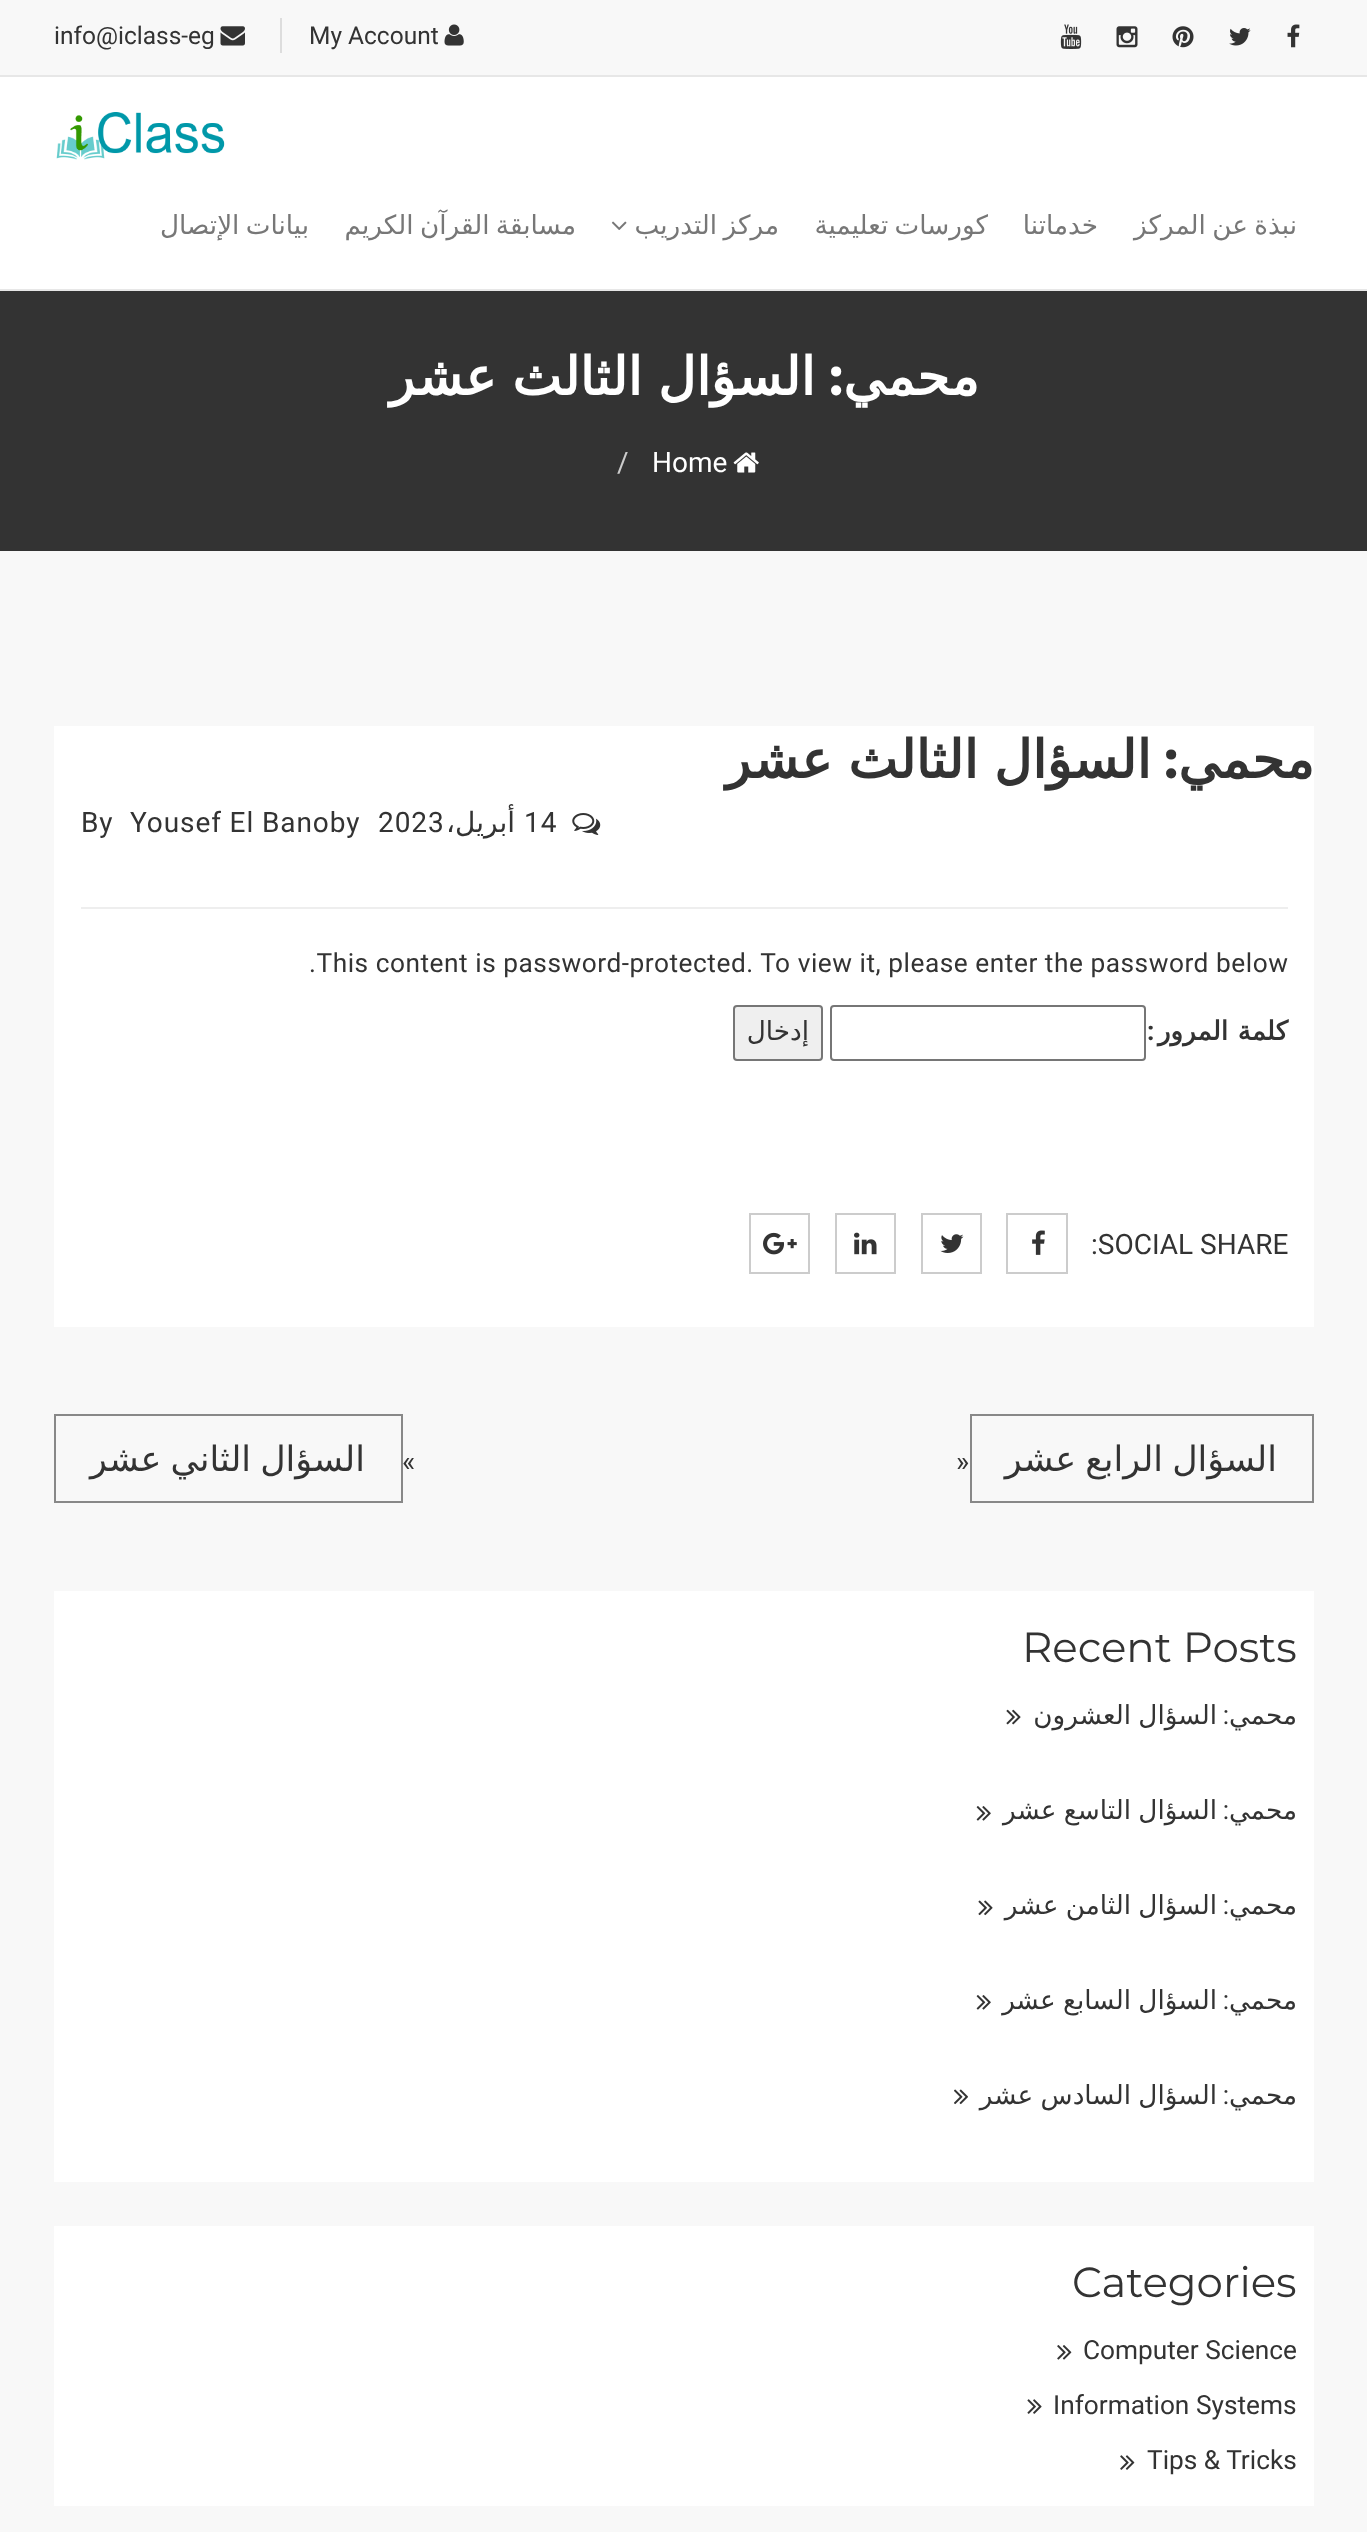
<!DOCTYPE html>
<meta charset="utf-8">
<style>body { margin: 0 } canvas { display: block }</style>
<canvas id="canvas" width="1367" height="2532"></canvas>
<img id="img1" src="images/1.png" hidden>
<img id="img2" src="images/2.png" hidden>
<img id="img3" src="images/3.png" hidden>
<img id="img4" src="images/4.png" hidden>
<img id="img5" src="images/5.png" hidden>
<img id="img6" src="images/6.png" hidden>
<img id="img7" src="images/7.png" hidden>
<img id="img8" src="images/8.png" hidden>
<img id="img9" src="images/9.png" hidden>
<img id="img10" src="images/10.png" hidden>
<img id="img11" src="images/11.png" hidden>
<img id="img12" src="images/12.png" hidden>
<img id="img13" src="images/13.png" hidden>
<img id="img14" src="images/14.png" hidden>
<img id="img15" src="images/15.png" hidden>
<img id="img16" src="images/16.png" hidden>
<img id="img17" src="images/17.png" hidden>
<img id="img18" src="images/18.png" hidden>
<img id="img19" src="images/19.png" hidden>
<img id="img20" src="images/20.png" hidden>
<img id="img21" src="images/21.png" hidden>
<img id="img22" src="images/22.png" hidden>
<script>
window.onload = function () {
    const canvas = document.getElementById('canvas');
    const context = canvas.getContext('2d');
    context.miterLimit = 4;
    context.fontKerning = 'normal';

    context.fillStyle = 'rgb(255, 255, 255)';
    context.fillRect(0, 0, 1367, 2532);
    context.fillStyle = 'rgb(248, 248, 248)';
    context.fillRect(0, 0, 1367, 75);
    context.drawImage(document.getElementById('img1'), 1287, 24, 13, 24);
    context.drawImage(document.getElementById('img2'), 1229, 28, 22, 18);
    context.drawImage(document.getElementById('img3'), 1172, 26, 22, 22);
    context.drawImage(document.getElementById('img4'), 1116, 26, 22, 22);
    context.drawImage(document.getElementById('img5'), 1060, 24, 22, 25);
    context.fillStyle = 'rgb(221, 221, 221)';
    context.fillRect(280, 18, 2, 35);
    context.drawImage(document.getElementById('img6'), 444, 24, 20, 22);
    context.drawImage(document.getElementById('img7'), 220, 26, 25, 20);
    context.fillStyle = 'rgb(231, 231, 231)';
    context.fillRect(0, 75, 1367, 2);
    context.fillRect(0, 289, 1367, 2);
    context.drawImage(document.getElementById('img8'), 56, 112, 169, 48);
    context.drawImage(document.getElementById('img9'), 611, 221, 16, 9);
    context.fillStyle = 'rgb(51, 51, 51)';
    context.fillRect(0, 291, 1367, 260);
    context.drawImage(document.getElementById('img10'), 733, 452, 26, 21);
    context.fillStyle = 'rgb(248, 248, 248)';
    context.fillRect(0, 551, 1367, 1981);
    context.fillStyle = 'rgb(255, 255, 255)';
    context.fillRect(54, 726, 1260, 601);
    context.drawImage(document.getElementById('img11'), 572, 813, 29, 22);
    context.fillStyle = 'rgb(238, 238, 238)';
    context.fillRect(81, 907, 1207, 2);
    context.beginPath();
    context.roundRect(831, 1006, 314, 54, 3);
    context.strokeStyle = 'rgb(118, 118, 118)';
    context.lineWidth = 2;
    context.stroke();
    context.fillStyle = 'rgb(239, 239, 239)';
    context.beginPath();
    context.roundRect(734, 1006, 88, 54, 3);
    context.fill();
    context.stroke();
    context.strokeStyle = 'rgb(204, 204, 204)';
    context.strokeRect(1007, 1214, 60, 59);
    context.drawImage(document.getElementById('img12'), 1032, 1230, 13, 25);
    context.strokeRect(922, 1214, 59, 59);
    context.drawImage(document.getElementById('img13'), 940, 1234, 24, 19);
    context.strokeRect(836, 1214, 59, 59);
    context.drawImage(document.getElementById('img14'), 854, 1232, 23, 23);
    context.strokeRect(750, 1214, 59, 59);
    context.drawImage(document.getElementById('img15'), 763, 1232, 34, 23);
    context.strokeStyle = 'rgb(136, 136, 136)';
    context.strokeRect(971, 1415, 342, 87);
    context.strokeRect(55, 1415, 347, 87);
    context.fillStyle = 'rgb(255, 255, 255)';
    context.fillRect(54, 1591, 1260, 591);
    context.drawImage(document.getElementById('img16'), 1006, 1709, 15, 16);
    context.drawImage(document.getElementById('img17'), 976, 1806, 15, 15);
    context.drawImage(document.getElementById('img18'), 978, 1900, 15, 16);
    context.drawImage(document.getElementById('img17'), 976, 1995, 15, 15);
    context.drawImage(document.getElementById('img19'), 954, 2089, 14, 16);
    context.fillRect(54, 2226, 1260, 280);
    context.drawImage(document.getElementById('img20'), 1057, 2345, 15, 15);
    context.drawImage(document.getElementById('img21'), 1027, 2399, 15, 15);
    context.drawImage(document.getElementById('img22'), 1120, 2455, 15, 15);
    context.font = '24.5px Roboto';
    context.fillStyle = 'rgb(51, 51, 51)';
    context.fillText('My Account', 309, 44);
    context.fillText('info@iclass-eg', 54, 44);
    context.wordSpacing = '-2px';
    context.direction = 'rtl';
    context.font = '26.25px DejaVu Sans';
    context.fillStyle = 'rgb(119, 119, 119)';
    context.fillText('نبذة عن المركز', 1297, 234);
    context.wordSpacing = '0px';
    context.fillText('خدماتنا', 1098, 234);
    context.wordSpacing = '-2px';
    context.fillText('كورسات تعليمية', 988, 234);
    context.fillText('مركز التدريب', 779, 234);
    context.fillText('مسابقة القرآن الكريم', 576, 234);
    context.fillText('بيانات الإتصال', 309, 234);
    context.wordSpacing = '0px';
    context.font = 'bold 52.5px DejaVu Sans';
    context.fillStyle = 'rgb(255, 255, 255)';
    context.fillText('محمي', 979, 395);
    context.font = 'bold 52.5px Montserrat';
    context.fillText(':', 843, 395);
    context.wordSpacing = '-1px';
    context.font = 'bold 52.5px DejaVu Sans';
    context.fillText('السؤال الثالث عشر', 815, 395);
    context.wordSpacing = '0px';
    context.direction = 'ltr';
    context.font = '28px Roboto';
    context.fillText('Home', 652, 472);
    context.fillStyle = 'rgb(204, 204, 204)';
    context.fillText('/', 617, 472);
    context.direction = 'rtl';
    context.font = 'bold 52.5px DejaVu Sans';
    context.fillStyle = 'rgb(51, 51, 51)';
    context.fillText('محمي', 1314, 778);
    context.font = 'bold 52.5px Montserrat';
    context.fillText(':', 1178, 778);
    context.wordSpacing = '-1px';
    context.font = 'bold 52.5px DejaVu Sans';
    context.fillText('السؤال الثالث عشر', 1151, 778);
    context.letterSpacing = '0.9px';
    context.wordSpacing = '0px';
    context.direction = 'ltr';
    context.font = '28px Roboto';
    context.fillText('14', 524, 832);
    context.direction = 'rtl';
    context.font = '28px DejaVu Sans';
    context.fillText('أبريل،', 515, 832);
    context.direction = 'ltr';
    context.font = '28px Roboto';
    context.fillText('2023', 378, 832);
    context.fillText('Yousef El Banoby', 130, 832);
    context.fillText('By', 81, 832);
    context.letterSpacing = '0.53px';
    context.font = '26.25px Roboto';
    context.fillText('.This content is password-protected. To view it, please enter the password below', 309, 972);
    context.direction = 'rtl';
    context.font = 'bold 26.25px DejaVu Sans';
    context.fillText('كلمة', 1288, 1040);
    context.fillText('المرور', 1228, 1040);
    context.font = 'bold 26.25px Roboto';
    context.fillText(':', 1155, 1040);
    context.letterSpacing = '0px';
    context.font = '26.25px DejaVu Sans';
    context.fillText('إدخال', 809, 1040);
    context.direction = 'ltr';
    context.font = '28px Roboto';
    context.fillText(':SOCIAL SHARE', 1091, 1254);
    context.wordSpacing = '-2px';
    context.direction = 'rtl';
    context.font = '35px DejaVu Sans';
    context.fillText('السؤال الرابع عشر', 1277, 1471);
    context.wordSpacing = '0px';
    context.direction = 'ltr';
    context.font = '28px Roboto';
    context.fillText('»', 956, 1471);
    context.fillText('«', 402, 1471);
    context.wordSpacing = '-2px';
    context.direction = 'rtl';
    context.font = '35px DejaVu Sans';
    context.fillText('السؤال الثاني عشر', 365, 1471);
    context.wordSpacing = '0px';
    context.direction = 'ltr';
    context.font = '42px Montserrat';
    context.fillText('Recent Posts', 1022, 1662);
    context.direction = 'rtl';
    context.font = '26.25px DejaVu Sans';
    context.fillText('محمي', 1297, 1724);
    context.font = '26.25px Roboto';
    context.fillText(':', 1229, 1724);
    context.wordSpacing = '-1px';
    context.font = '26.25px DejaVu Sans';
    context.fillText('السؤال العشرون', 1217, 1724);
    context.wordSpacing = '0px';
    context.fillText('محمي', 1297, 1819);
    context.font = '26.25px Roboto';
    context.fillText(':', 1229, 1819);
    context.wordSpacing = '-1px';
    context.font = '26.25px DejaVu Sans';
    context.fillText('السؤال التاسع عشر', 1217, 1819);
    context.wordSpacing = '0px';
    context.fillText('محمي', 1297, 1914);
    context.font = '26.25px Roboto';
    context.fillText(':', 1229, 1914);
    context.wordSpacing = '-1px';
    context.font = '26.25px DejaVu Sans';
    context.fillText('السؤال الثامن عشر', 1217, 1914);
    context.wordSpacing = '0px';
    context.fillText('محمي', 1297, 2009);
    context.font = '26.25px Roboto';
    context.fillText(':', 1229, 2009);
    context.wordSpacing = '-1px';
    context.font = '26.25px DejaVu Sans';
    context.fillText('السؤال السابع عشر', 1217, 2009);
    context.wordSpacing = '0px';
    context.fillText('محمي', 1297, 2104);
    context.font = '26.25px Roboto';
    context.fillText(':', 1229, 2104);
    context.wordSpacing = '-1px';
    context.font = '26.25px DejaVu Sans';
    context.fillText('السؤال السادس عشر', 1217, 2104);
    context.wordSpacing = '0px';
    context.direction = 'ltr';
    context.font = '42px Montserrat';
    context.fillText('Categories', 1072, 2297);
    context.font = '26.25px Roboto';
    context.fillText('Computer Science', 1083, 2359);
    context.fillText('Information Systems', 1053, 2414);
    context.fillText('Tips & Tricks', 1147, 2469);
};
</script>
